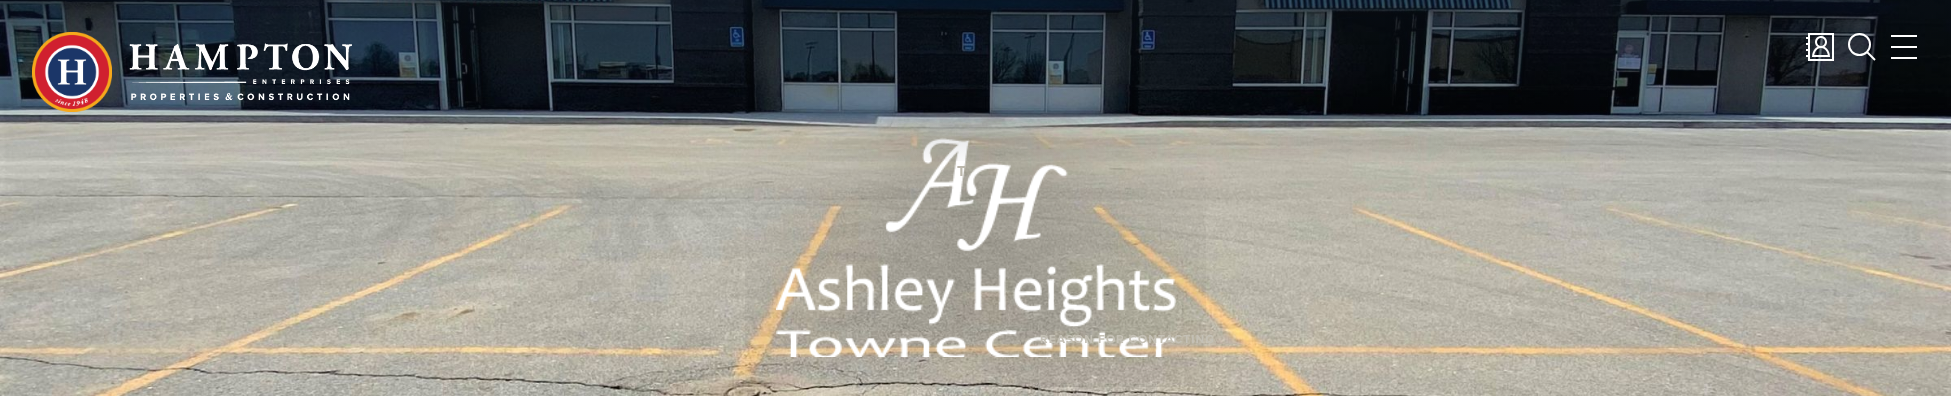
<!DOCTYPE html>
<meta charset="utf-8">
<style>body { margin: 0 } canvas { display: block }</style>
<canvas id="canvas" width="1951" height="396"></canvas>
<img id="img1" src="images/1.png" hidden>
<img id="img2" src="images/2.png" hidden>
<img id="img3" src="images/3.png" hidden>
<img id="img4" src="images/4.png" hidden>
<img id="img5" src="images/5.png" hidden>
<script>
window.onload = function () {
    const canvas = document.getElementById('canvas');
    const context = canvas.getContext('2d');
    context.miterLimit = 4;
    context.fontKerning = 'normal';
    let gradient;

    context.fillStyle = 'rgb(255, 255, 255)';
    context.fillRect(0, 0, 1951, 396);
    context.drawImage(document.getElementById('img1'), 0, 0, 1951, 396);
    context.drawImage(document.getElementById('img2'), 745, 108, 461, 279);
    gradient = context.createLinearGradient(976, 0, 976, 168);
    gradient.addColorStop(0, 'rgba(11, 21, 34, 0.5)');
    gradient.addColorStop(1, 'rgba(11, 21, 34, 0)');
    context.fillStyle = gradient;
    context.fillRect(0, 0, 1951, 161);
    context.drawImage(document.getElementById('img3'), 32, 32, 80, 80);
    context.drawImage(document.getElementById('img4'), 129, 43, 223, 58);
    context.drawImage(document.getElementById('img5'), 1806, 33, 28, 28);
    context.beginPath();
    context.arc(1859.5, 44.5, 10.5, 0, 2 * Math.PI);
    context.strokeStyle = 'rgb(255, 255, 255)';
    context.lineWidth = 2;
    context.stroke();
    context.beginPath();
    context.moveTo(1867, 52);
    context.lineTo(1875, 60);
    context.stroke();
    context.fillStyle = 'rgb(255, 255, 255)';
    context.fillRect(1891, 35, 26, 2);
    context.fillRect(1891, 46, 26, 2);
    context.fillRect(1891, 57, 26, 2);
    context.font = 'bold 15px Proxima Nova';
    context.fillStyle = 'rgb(188, 184, 172)';
    context.fillText('T', 957, 176);
    context.letterSpacing = '1px';
    context.font = 'bold 12px Proxima Nova';
    context.fillStyle = 'rgb(196, 192, 181)';
    context.fillText('REASON FOR CONTACTING', 1040, 343);
};
</script>
